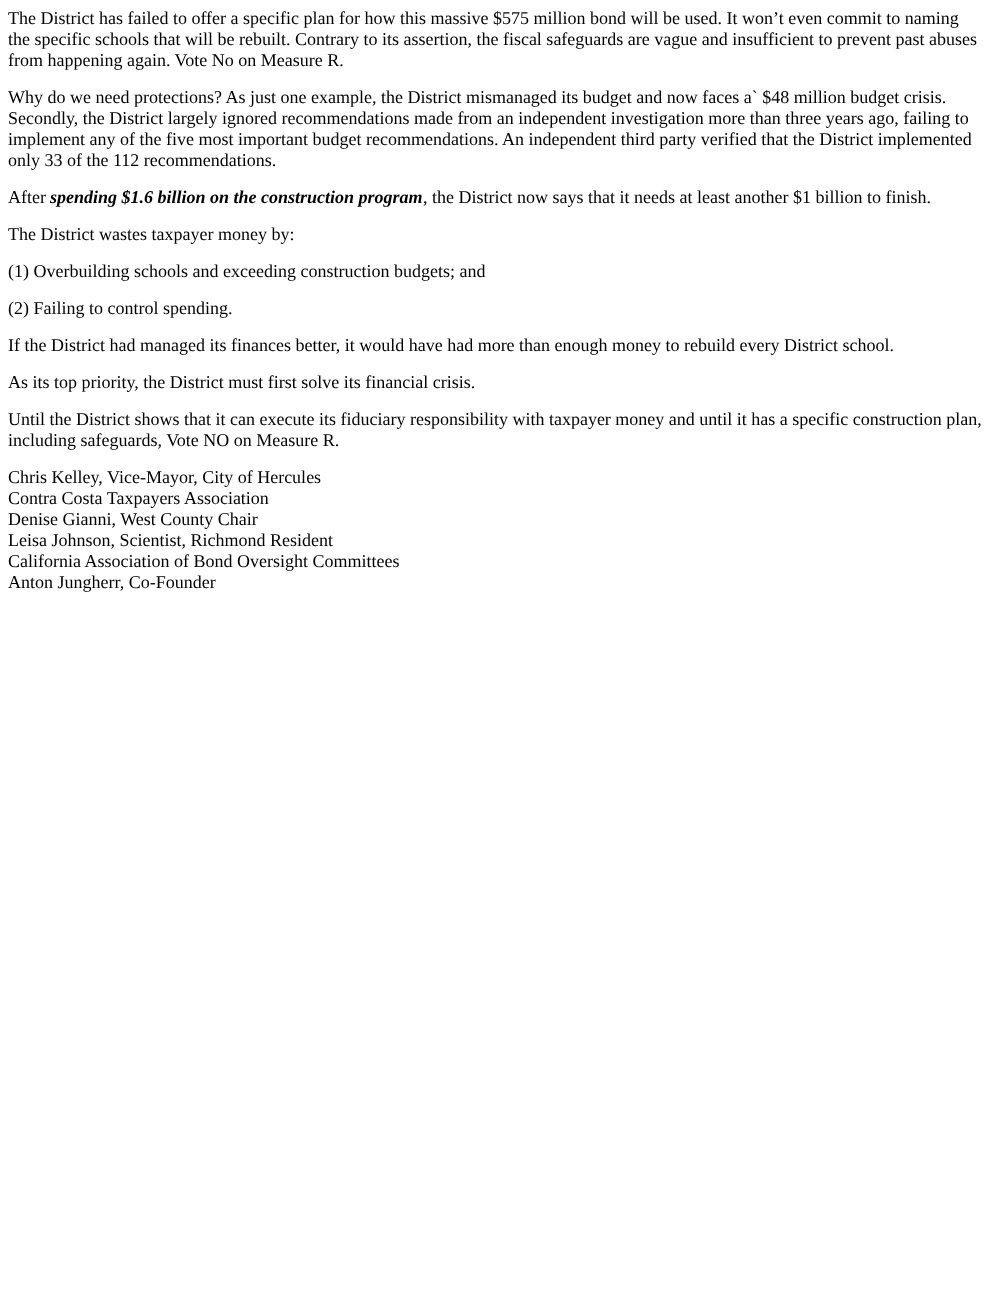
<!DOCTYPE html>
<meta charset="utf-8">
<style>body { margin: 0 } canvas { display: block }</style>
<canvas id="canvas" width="991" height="1298"></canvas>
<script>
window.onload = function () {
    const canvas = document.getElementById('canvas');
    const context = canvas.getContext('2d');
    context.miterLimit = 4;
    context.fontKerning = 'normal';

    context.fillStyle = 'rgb(255, 255, 255)';
    context.fillRect(0, 0, 991, 1298);
    context.font = '18px Liberation Serif';
    context.fillStyle = 'rgb(0, 0, 0)';
    context.fillText('The District has failed to offer a specific plan for how this massive $575 million bond will be used. It won’t even commit to naming', 8, 24);
    context.fillText('the specific schools that will be rebuilt. Contrary to its assertion, the fiscal safeguards are vague and insufficient to prevent past abuses', 8, 45);
    context.fillText('from happening again. Vote No on Measure R.', 8, 66);
    context.fillText('Why do we need protections? As just one example, the District mismanaged its budget and now faces a` $48 million budget crisis.', 8, 103);
    context.fillText('Secondly, the District largely ignored recommendations made from an independent investigation more than three years ago, failing to', 8, 124);
    context.fillText('implement any of the five most important budget recommendations. An independent third party verified that the District implemented', 8, 145);
    context.fillText('only 33 of the 112 recommendations.', 8, 166);
    context.fillText('After', 8, 203);
    context.font = 'italic bold 18px Liberation Serif';
    context.fillText('spending $1.6 billion on the construction program', 50, 203);
    context.font = '18px Liberation Serif';
    context.fillText(', the District now says that it needs at least another $1 billion to finish.', 423, 203);
    context.fillText('The District wastes taxpayer money by:', 8, 240);
    context.fillText('(1) Overbuilding schools and exceeding construction budgets; and', 8, 277);
    context.fillText('(2) Failing to control spending.', 8, 314);
    context.fillText('If the District had managed its finances better, it would have had more than enough money to rebuild every District school.', 8, 351);
    context.fillText('As its top priority, the District must first solve its financial crisis.', 8, 388);
    context.fillText('Until the District shows that it can execute its fiduciary responsibility with taxpayer money and until it has a specific construction plan,', 8, 425);
    context.fillText('including safeguards, Vote NO on Measure R.', 8, 446);
    context.fillText('Chris Kelley, Vice-Mayor, City of Hercules', 8, 483);
    context.fillText('Contra Costa Taxpayers Association', 8, 504);
    context.fillText('Denise Gianni, West County Chair', 8, 525);
    context.fillText('Leisa Johnson, Scientist, Richmond Resident', 8, 546);
    context.fillText('California Association of Bond Oversight Committees', 8, 567);
    context.fillText('Anton Jungherr, Co-Founder', 8, 588);
};
</script>
